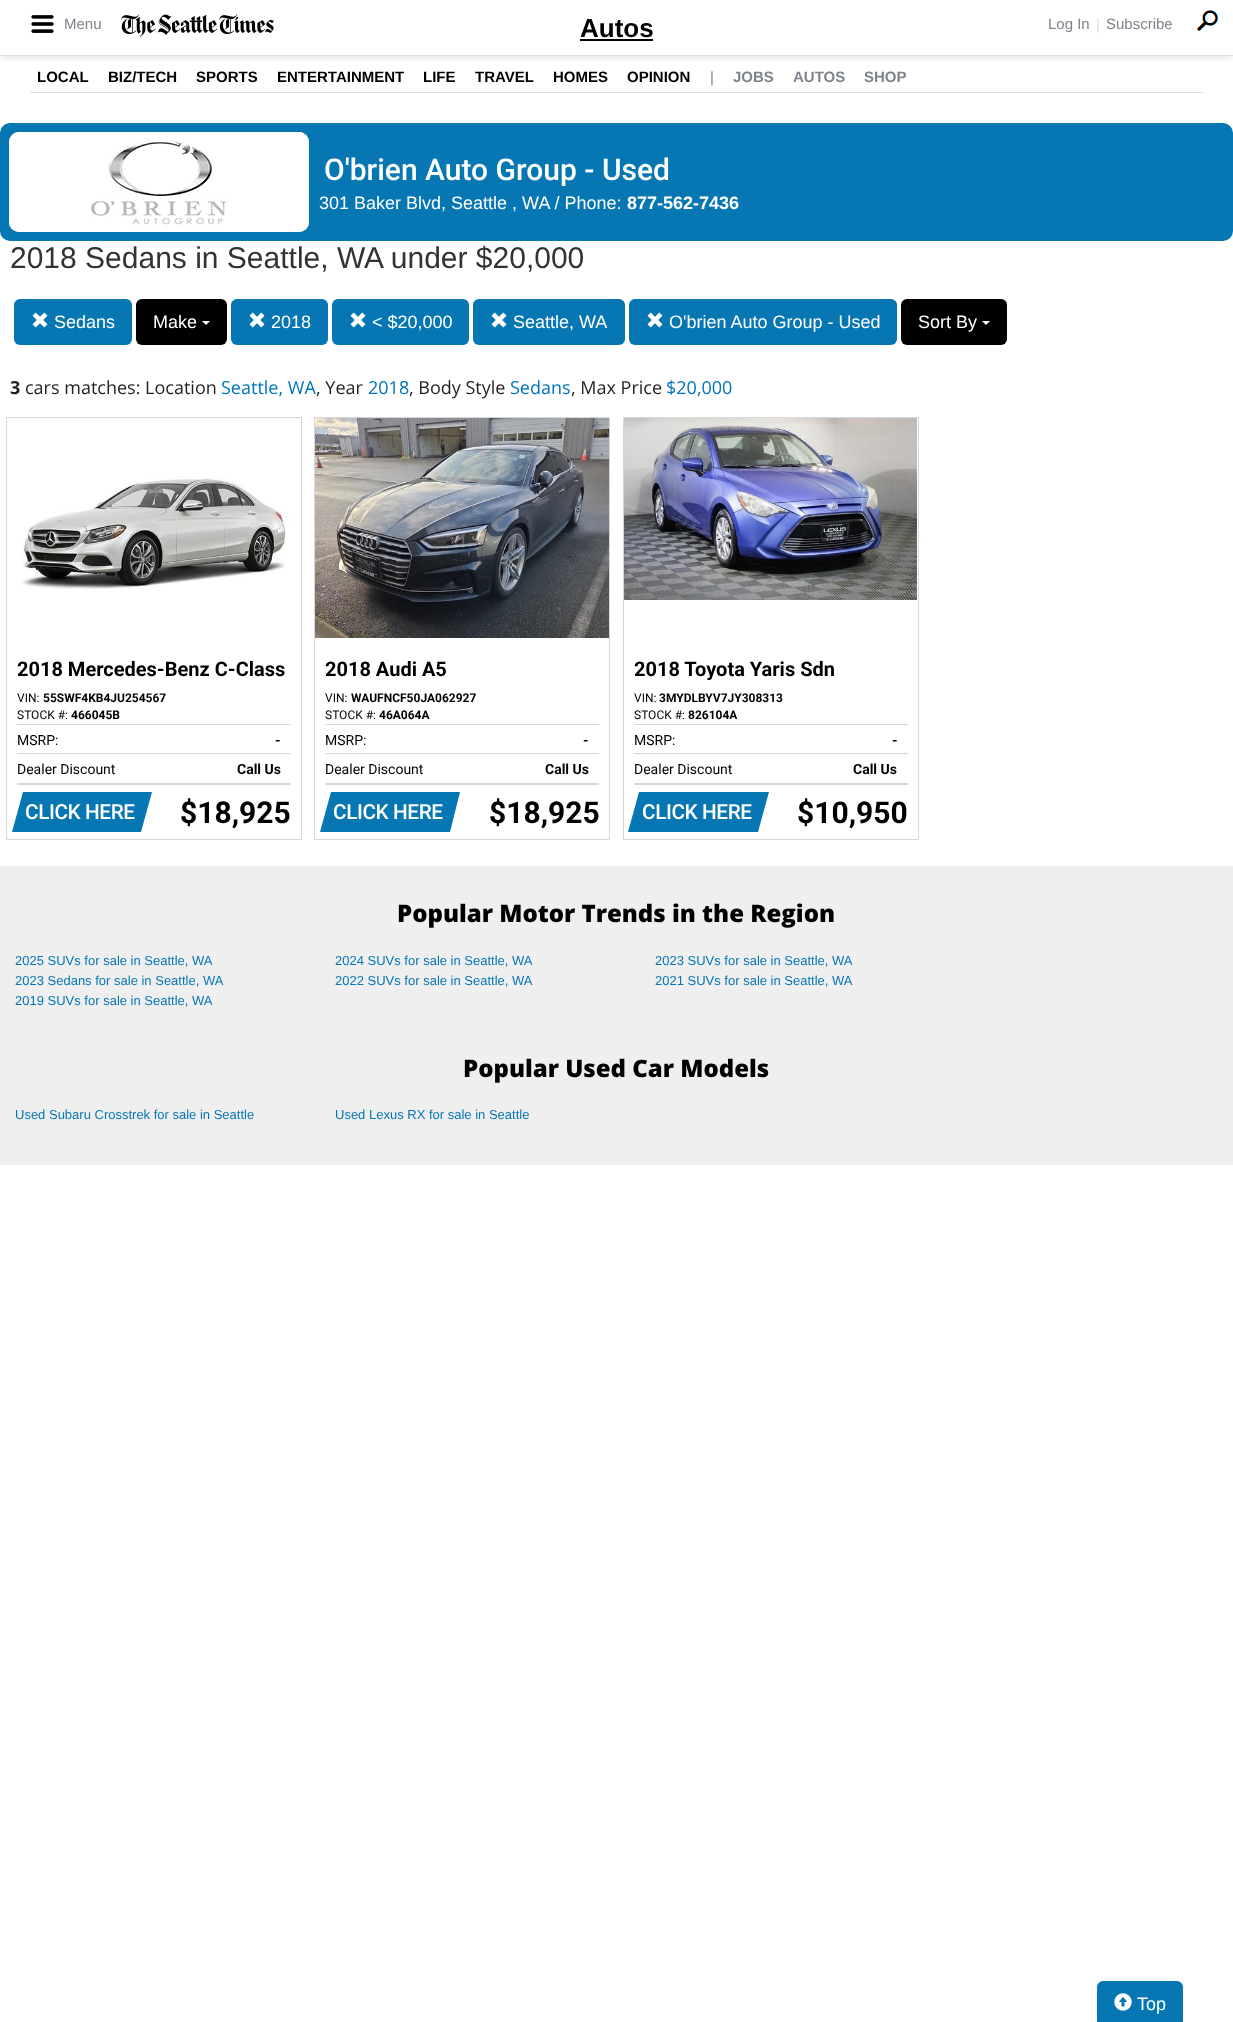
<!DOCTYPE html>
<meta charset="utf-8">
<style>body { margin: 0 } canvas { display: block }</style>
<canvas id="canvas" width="1233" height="2022"></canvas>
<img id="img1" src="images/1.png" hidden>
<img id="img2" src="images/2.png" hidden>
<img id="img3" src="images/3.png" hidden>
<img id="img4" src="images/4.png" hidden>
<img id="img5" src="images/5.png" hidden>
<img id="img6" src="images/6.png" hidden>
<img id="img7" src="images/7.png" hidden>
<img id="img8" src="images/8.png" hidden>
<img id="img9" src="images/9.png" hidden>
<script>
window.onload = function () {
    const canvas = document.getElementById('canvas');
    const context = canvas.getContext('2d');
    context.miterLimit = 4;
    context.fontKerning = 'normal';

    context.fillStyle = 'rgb(255, 255, 255)';
    context.fillRect(0, 0, 1233, 2022);
    context.save();
    context.beginPath();
    context.rect(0, 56, 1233, 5);
    context.clip();
    context.fillStyle = 'rgba(0, 0, 0, 0.1)';
    context.filter = 'blur(3.5px)';
    context.beginPath();
    context.rect(0, 2, 1233, 56);
    context.fill();
    context.filter = 'none';
    context.restore();
    context.fillStyle = 'rgb(224, 224, 224)';
    context.fillRect(0, 55, 1233, 1);
    context.drawImage(document.getElementById('img1'), 31, 15, 23, 18);
    context.drawImage(document.getElementById('img2'), 121, 14, 153, 23);
    context.drawImage(document.getElementById('img3'), 1197, 10, 21, 21);
    context.fillStyle = 'rgb(0, 0, 0)';
    context.fillRect(580, 39, 73, 2);
    context.fillStyle = 'rgb(224, 224, 224)';
    context.fillRect(30, 92, 1173, 1);
    context.fillStyle = 'rgb(7, 119, 179)';
    context.beginPath();
    context.roundRect(0, 123, 1233, 118, 10);
    context.fill();
    context.fillStyle = 'rgb(255, 255, 255)';
    context.beginPath();
    context.roundRect(9, 132, 300, 100, 10);
    context.fill();
    context.drawImage(document.getElementById('img4'), 9, 132, 300, 100);
    context.fillStyle = 'rgb(7, 119, 179)';
    context.beginPath();
    context.roundRect(14, 299, 118, 46, 6);
    context.fill();
    context.drawImage(document.getElementById('img5'), 32, 312, 16, 16);
    context.fillStyle = 'rgb(0, 0, 0)';
    context.beginPath();
    context.roundRect(136, 299, 91, 46, 6);
    context.fill();
    context.fillStyle = 'rgb(255, 255, 255)';
    context.beginPath();
    context.moveTo(202, 321);
    context.lineTo(210, 321);
    context.lineTo(206, 325);
    context.closePath();
    context.fill();
    context.fillStyle = 'rgb(7, 119, 179)';
    context.beginPath();
    context.roundRect(231, 299, 97, 46, 6);
    context.fill();
    context.drawImage(document.getElementById('img5'), 249, 312, 16, 16);
    context.beginPath();
    context.roundRect(332, 299, 137, 46, 6);
    context.fill();
    context.drawImage(document.getElementById('img5'), 350, 312, 16, 16);
    context.beginPath();
    context.roundRect(473, 299, 152, 46, 6);
    context.fill();
    context.drawImage(document.getElementById('img5'), 491, 312, 16, 16);
    context.beginPath();
    context.roundRect(629, 299, 268, 46, 6);
    context.fill();
    context.drawImage(document.getElementById('img5'), 647, 312, 16, 16);
    context.fillStyle = 'rgb(0, 0, 0)';
    context.beginPath();
    context.roundRect(901, 299, 106, 46, 6);
    context.fill();
    context.fillStyle = 'rgb(255, 255, 255)';
    context.beginPath();
    context.moveTo(982, 321);
    context.lineTo(990, 321);
    context.lineTo(986, 325);
    context.closePath();
    context.fill();
    context.strokeStyle = 'rgb(212, 216, 217)';
    context.strokeRect(6.5, 417.5, 295, 422);
    context.drawImage(document.getElementById('img6'), 22, 477, 269, 112);
    context.fillStyle = 'rgb(212, 216, 217)';
    context.fillRect(17, 724, 274, 1);
    context.fillRect(17, 753, 274, 1);
    context.fillRect(17, 783, 274, 2);
    context.fillStyle = 'rgb(7, 119, 179)';
    context.beginPath();
    context.moveTo(23, 792);
    context.lineTo(152, 792);
    context.lineTo(141, 832);
    context.lineTo(12, 832);
    context.closePath();
    context.fill();
    context.strokeRect(314.5, 417.5, 295, 422);
    context.drawImage(document.getElementById('img7'), 315, 418, 294, 220);
    context.fillStyle = 'rgb(212, 216, 217)';
    context.fillRect(325, 724, 274, 1);
    context.fillRect(325, 753, 274, 1);
    context.fillRect(325, 783, 274, 2);
    context.fillStyle = 'rgb(7, 119, 179)';
    context.beginPath();
    context.moveTo(331, 792);
    context.lineTo(460, 792);
    context.lineTo(450, 832);
    context.lineTo(320, 832);
    context.closePath();
    context.fill();
    context.strokeRect(623.5, 417.5, 295, 422);
    context.drawImage(document.getElementById('img8'), 624, 418, 293, 182);
    context.fillStyle = 'rgb(212, 216, 217)';
    context.fillRect(634, 724, 274, 1);
    context.fillRect(634, 753, 274, 1);
    context.fillRect(634, 783, 274, 2);
    context.fillStyle = 'rgb(7, 119, 179)';
    context.beginPath();
    context.moveTo(639, 792);
    context.lineTo(769, 792);
    context.lineTo(758, 832);
    context.lineTo(628, 832);
    context.closePath();
    context.fill();
    context.beginPath();
    context.roundRect(1097.5, 1981.5, 85, 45, 5.5);
    context.fill();
    context.strokeStyle = 'rgb(7, 119, 179)';
    context.stroke();
    context.drawImage(document.getElementById('img9'), 1114, 1993, 18, 18);
    context.fillStyle = 'rgb(239, 239, 239)';
    context.fillRect(0, 866, 1233, 299);
    context.font = '15px Liberation Sans';
    context.fillStyle = 'rgb(126, 131, 139)';
    context.fillText('Menu', 64, 29);
    context.fillText('Log In', 1048, 29);
    context.fillStyle = 'rgb(224, 224, 224)';
    context.fillText('|', 1096, 29);
    context.fillStyle = 'rgb(126, 131, 139)';
    context.fillText('Subscribe', 1106, 29);
    context.font = 'bold 26px Liberation Sans';
    context.fillStyle = 'rgb(0, 0, 0)';
    context.fillText('Autos', 580, 37);
    context.font = 'bold 15px Liberation Sans';
    context.fillText('LOCAL', 37, 82);
    context.fillText('BIZ/TECH', 108, 82);
    context.fillText('SPORTS', 196, 82);
    context.fillText('ENTERTAINMENT', 277, 82);
    context.fillText('LIFE', 423, 82);
    context.fillText('TRAVEL', 475, 82);
    context.fillText('HOMES', 553, 82);
    context.fillText('OPINION', 627, 82);
    context.font = '15px Liberation Sans';
    context.fillStyle = 'rgb(126, 131, 139)';
    context.fillText('|', 710, 82);
    context.font = 'bold 15px Liberation Sans';
    context.fillText('JOBS', 733, 82);
    context.fillText('AUTOS', 793, 82);
    context.fillText('SHOP', 864, 82);
    context.font = '500 30px Roboto';
    context.fillStyle = 'rgb(255, 255, 255)';
    context.fillText('O\'brien Auto Group - Used', 324, 180);
    context.font = '18px Liberation Sans';
    context.fillText('301 Baker Blvd, Seattle , WA / Phone:', 319, 209);
    context.font = 'bold 18px Liberation Sans';
    context.fillText('877-562-7436', 627, 209);
    context.font = '30px Liberation Sans';
    context.fillStyle = 'rgb(51, 51, 51)';
    context.fillText('2018 Sedans in Seattle, WA under $20,000', 10, 268);
    context.font = '18px Liberation Sans';
    context.fillStyle = 'rgb(255, 255, 255)';
    context.fillText('Sedans', 54, 328);
    context.fillText('Make', 153, 328);
    context.fillText('2018', 271, 328);
    context.fillText('< $20,000', 372, 328);
    context.fillText('Seattle, WA', 513, 328);
    context.fillText('O\'brien Auto Group - Used', 669, 328);
    context.fillText('Sort By', 918, 328);
    context.font = 'bold 18px Open Sans';
    context.fillStyle = 'rgb(35, 31, 32)';
    context.fillText('3', 10, 394);
    context.font = '18px Open Sans';
    context.fillText('cars matches: Location', 25, 394);
    context.fillStyle = 'rgb(0, 115, 189)';
    context.fillText('Seattle, WA', 221, 394);
    context.fillStyle = 'rgb(35, 31, 32)';
    context.fillText(', Year', 316, 394);
    context.fillStyle = 'rgb(0, 115, 189)';
    context.fillText('2018', 368, 394);
    context.fillStyle = 'rgb(35, 31, 32)';
    context.fillText(', Body Style', 409, 394);
    context.fillStyle = 'rgb(0, 115, 189)';
    context.fillText('Sedans', 510, 394);
    context.fillStyle = 'rgb(35, 31, 32)';
    context.fillText(', Max Price', 571, 394);
    context.fillStyle = 'rgb(0, 115, 189)';
    context.fillText('$20,000', 666, 394);
    context.font = 'bold 20px Roboto';
    context.fillStyle = 'rgb(0, 0, 0)';
    context.fillText('2018 Mercedes-Benz C-Class', 17, 676);
    context.font = '12px Roboto';
    context.fillText('VIN:', 17, 702);
    context.font = 'bold 12px Roboto';
    context.fillText('55SWF4KB4JU254567', 43, 702);
    context.font = '12px Roboto';
    context.fillText('STOCK #:', 17, 719);
    context.font = 'bold 12px Roboto';
    context.fillText('466045B', 71, 719);
    context.font = '14px Roboto';
    context.fillText('MSRP:', 17, 745);
    context.font = 'bold 14px Roboto';
    context.fillText('-', 275, 745);
    context.font = '14px Roboto';
    context.fillText('Dealer Discount', 17, 774);
    context.font = 'bold 14px Roboto';
    context.fillText('Call Us', 237, 774);
    context.letterSpacing = '-0.4px';
    context.font = '500 20.75px Roboto';
    context.fillStyle = 'rgb(255, 255, 255)';
    context.fillText('CLICK HERE', 25, 819);
    context.letterSpacing = '0px';
    context.font = 'bold 30px Roboto';
    context.fillStyle = 'rgb(0, 0, 0)';
    context.fillText('$18,925', 180, 823);
    context.font = 'bold 20px Roboto';
    context.fillText('2018 Audi A5', 325, 676);
    context.font = '12px Roboto';
    context.fillText('VIN:', 325, 702);
    context.font = 'bold 12px Roboto';
    context.fillText('WAUFNCF50JA062927', 351, 702);
    context.font = '12px Roboto';
    context.fillText('STOCK #:', 325, 719);
    context.font = 'bold 12px Roboto';
    context.fillText('46A064A', 379, 719);
    context.font = '14px Roboto';
    context.fillText('MSRP:', 325, 745);
    context.font = 'bold 14px Roboto';
    context.fillText('-', 583, 745);
    context.font = '14px Roboto';
    context.fillText('Dealer Discount', 325, 774);
    context.font = 'bold 14px Roboto';
    context.fillText('Call Us', 545, 774);
    context.letterSpacing = '-0.4px';
    context.font = '500 20.75px Roboto';
    context.fillStyle = 'rgb(255, 255, 255)';
    context.fillText('CLICK HERE', 333, 819);
    context.letterSpacing = '0px';
    context.font = 'bold 30px Roboto';
    context.fillStyle = 'rgb(0, 0, 0)';
    context.fillText('$18,925', 489, 823);
    context.save();
    context.beginPath();
    context.rect(634, 658, 201, 22);
    context.clip();
    context.font = 'bold 20px Roboto';
    context.fillText('2018 Toyota Yaris Sdn', 634, 676);
    context.restore();
    context.font = '12px Roboto';
    context.fillText('VIN:', 634, 702);
    context.font = 'bold 12px Roboto';
    context.fillText('3MYDLBYV7JY308313', 659, 702);
    context.font = '12px Roboto';
    context.fillText('STOCK #:', 634, 719);
    context.font = 'bold 12px Roboto';
    context.fillText('826104A', 688, 719);
    context.font = '14px Roboto';
    context.fillText('MSRP:', 634, 745);
    context.font = 'bold 14px Roboto';
    context.fillText('-', 892, 745);
    context.font = '14px Roboto';
    context.fillText('Dealer Discount', 634, 774);
    context.font = 'bold 14px Roboto';
    context.fillText('Call Us', 853, 774);
    context.letterSpacing = '-0.4px';
    context.font = '500 20.75px Roboto';
    context.fillStyle = 'rgb(255, 255, 255)';
    context.fillText('CLICK HERE', 642, 819);
    context.letterSpacing = '0px';
    context.font = 'bold 30px Roboto';
    context.fillStyle = 'rgb(0, 0, 0)';
    context.fillText('$10,950', 797, 823);
    context.font = '18px Liberation Sans';
    context.fillStyle = 'rgb(255, 255, 255)';
    context.fillText('Top', 1137, 2010);
    context.font = '800 24px Open Sans';
    context.fillStyle = 'rgb(0, 0, 0)';
    context.fillText('Popular Motor Trends in the Region', 397, 922);
    context.font = '13px Liberation Sans';
    context.fillStyle = 'rgb(7, 119, 179)';
    context.fillText('2025 SUVs for sale in Seattle, WA', 15, 965);
    context.fillText('2024 SUVs for sale in Seattle, WA', 335, 965);
    context.fillText('2023 SUVs for sale in Seattle, WA', 655, 965);
    context.fillText('2023 Sedans for sale in Seattle, WA', 15, 985);
    context.fillText('2022 SUVs for sale in Seattle, WA', 335, 985);
    context.fillText('2021 SUVs for sale in Seattle, WA', 655, 985);
    context.fillText('2019 SUVs for sale in Seattle, WA', 15, 1005);
    context.font = '800 24px Open Sans';
    context.fillStyle = 'rgb(0, 0, 0)';
    context.fillText('Popular Used Car Models', 463, 1077);
    context.font = '13px Liberation Sans';
    context.fillStyle = 'rgb(7, 119, 179)';
    context.fillText('Used Subaru Crosstrek for sale in Seattle', 15, 1119);
    context.fillText('Used Lexus RX for sale in Seattle', 335, 1119);
};
</script>
